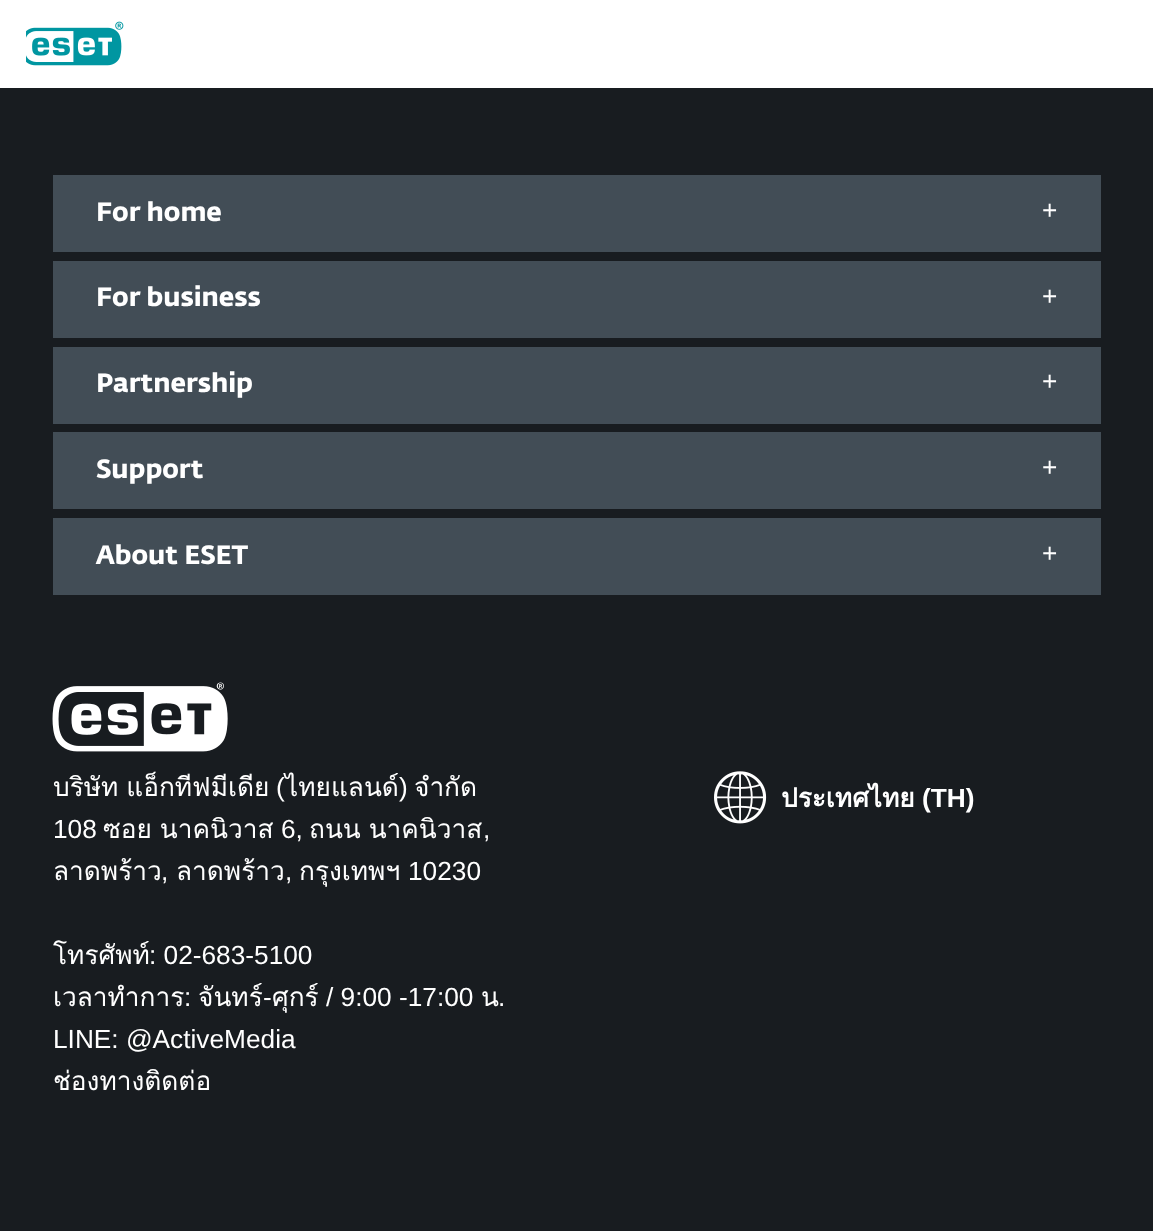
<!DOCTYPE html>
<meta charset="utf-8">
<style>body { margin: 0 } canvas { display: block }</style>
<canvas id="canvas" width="1153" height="1231"></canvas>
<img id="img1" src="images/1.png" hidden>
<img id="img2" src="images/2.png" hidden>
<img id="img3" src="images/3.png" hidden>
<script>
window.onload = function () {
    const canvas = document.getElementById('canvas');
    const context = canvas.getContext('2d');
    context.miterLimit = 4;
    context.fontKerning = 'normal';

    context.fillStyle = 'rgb(255, 255, 255)';
    context.fillRect(0, 0, 1153, 1231);
    context.drawImage(document.getElementById('img1'), 26, 21, 98, 45);
    context.fillStyle = 'rgb(24, 28, 32)';
    context.fillRect(0, 88, 1153, 1143);
    context.fillStyle = 'rgb(66, 77, 86)';
    context.fillRect(53, 175, 1048, 77);
    context.fillRect(53, 261, 1048, 77);
    context.fillRect(53, 347, 1048, 77);
    context.fillRect(53, 432, 1048, 77);
    context.fillRect(53, 518, 1048, 77);
    context.drawImage(document.getElementById('img2'), 52, 682, 176, 70);
    context.drawImage(document.getElementById('img3'), 714, 771, 53, 53);
    context.font = 'bold 26.25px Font';
    context.fillStyle = 'rgb(255, 255, 255)';
    context.fillText('For home', 96, 221);
    context.font = '26.25px Liberation Sans';
    context.fillText('+', 1042, 219);
    context.font = 'bold 26.25px Font';
    context.fillText('For business', 96, 306);
    context.font = '26.25px Liberation Sans';
    context.fillText('+', 1042, 305);
    context.font = 'bold 26.25px Font';
    context.fillText('Partnership', 96, 392);
    context.font = '26.25px Liberation Sans';
    context.fillText('+', 1042, 390);
    context.font = 'bold 26.25px Font';
    context.fillText('Support', 96, 478);
    context.font = '26.25px Liberation Sans';
    context.fillText('+', 1042, 476);
    context.font = 'bold 26.25px Font';
    context.fillText('About ESET', 96, 564);
    context.font = '26.25px Liberation Sans';
    context.fillText('+', 1042, 562);
    context.wordSpacing = '-1px';
    context.font = '26.25px Loma';
    context.fillText('บริษัท แอ็กทีฟมีเดีย', 53, 796);
    context.wordSpacing = '0px';
    context.font = '26.25px Liberation Sans';
    context.fillText('(', 276, 796);
    context.font = '26.25px Loma';
    context.fillText('ไทยแลนด์', 285, 796);
    context.font = '26.25px Liberation Sans';
    context.fillText(')', 399, 796);
    context.font = '26.25px Loma';
    context.fillText('จำกัด', 414, 796);
    context.font = '26.25px Liberation Sans';
    context.fillText('108', 53, 838);
    context.wordSpacing = '-1px';
    context.font = '26.25px Loma';
    context.fillText('ซอย นาคนิวาส', 103, 838);
    context.wordSpacing = '0px';
    context.font = '26.25px Liberation Sans';
    context.fillText('6,', 281, 838);
    context.wordSpacing = '-1px';
    context.font = '26.25px Loma';
    context.fillText('ถนน นาคนิวาส', 309, 838);
    context.wordSpacing = '0px';
    context.font = '26.25px Liberation Sans';
    context.fillText(',', 483, 838);
    context.font = '26.25px Loma';
    context.fillText('ลาดพร้าว', 53, 880);
    context.font = '26.25px Liberation Sans';
    context.fillText(',', 161, 880);
    context.font = '26.25px Loma';
    context.fillText('ลาดพร้าว', 176, 880);
    context.font = '26.25px Liberation Sans';
    context.fillText(',', 285, 880);
    context.font = '26.25px Loma';
    context.fillText('กรุงเทพฯ', 299, 880);
    context.font = '26.25px Liberation Sans';
    context.fillText('10230', 408, 880);
    context.font = '26.25px Loma';
    context.fillText('โทรศัพท์', 53, 964);
    context.font = '26.25px Liberation Sans';
    context.fillText(': 02-683-5100', 149, 964);
    context.font = '26.25px Loma';
    context.fillText('เวลาทำการ', 53, 1006);
    context.font = '26.25px Liberation Sans';
    context.fillText(':', 184, 1006);
    context.font = '26.25px Loma';
    context.fillText('จันทร์', 198, 1006);
    context.font = '26.25px Liberation Sans';
    context.fillText('/ 9:00 -17:00', 326, 1006);
    context.font = '26.25px Loma';
    context.fillText('น', 481, 1006);
    context.font = '26.25px Liberation Sans';
    context.fillText('-', 263, 1006);
    context.font = '26.25px Loma';
    context.fillText('ศุกร์', 272, 1006);
    context.font = '26.25px Liberation Sans';
    context.fillText('.', 498, 1006);
    context.fillText('LINE: @ActiveMedia', 53, 1048);
    context.font = '26.25px Loma';
    context.fillText('ช่องทางติดต่อ', 53, 1090);
    context.font = 'bold 26.25px Loma';
    context.fillText('ประเทศไทย', 781, 807);
    context.font = 'bold 26.25px Liberation Sans';
    context.fillText('(TH)', 922, 807);
};
</script>
